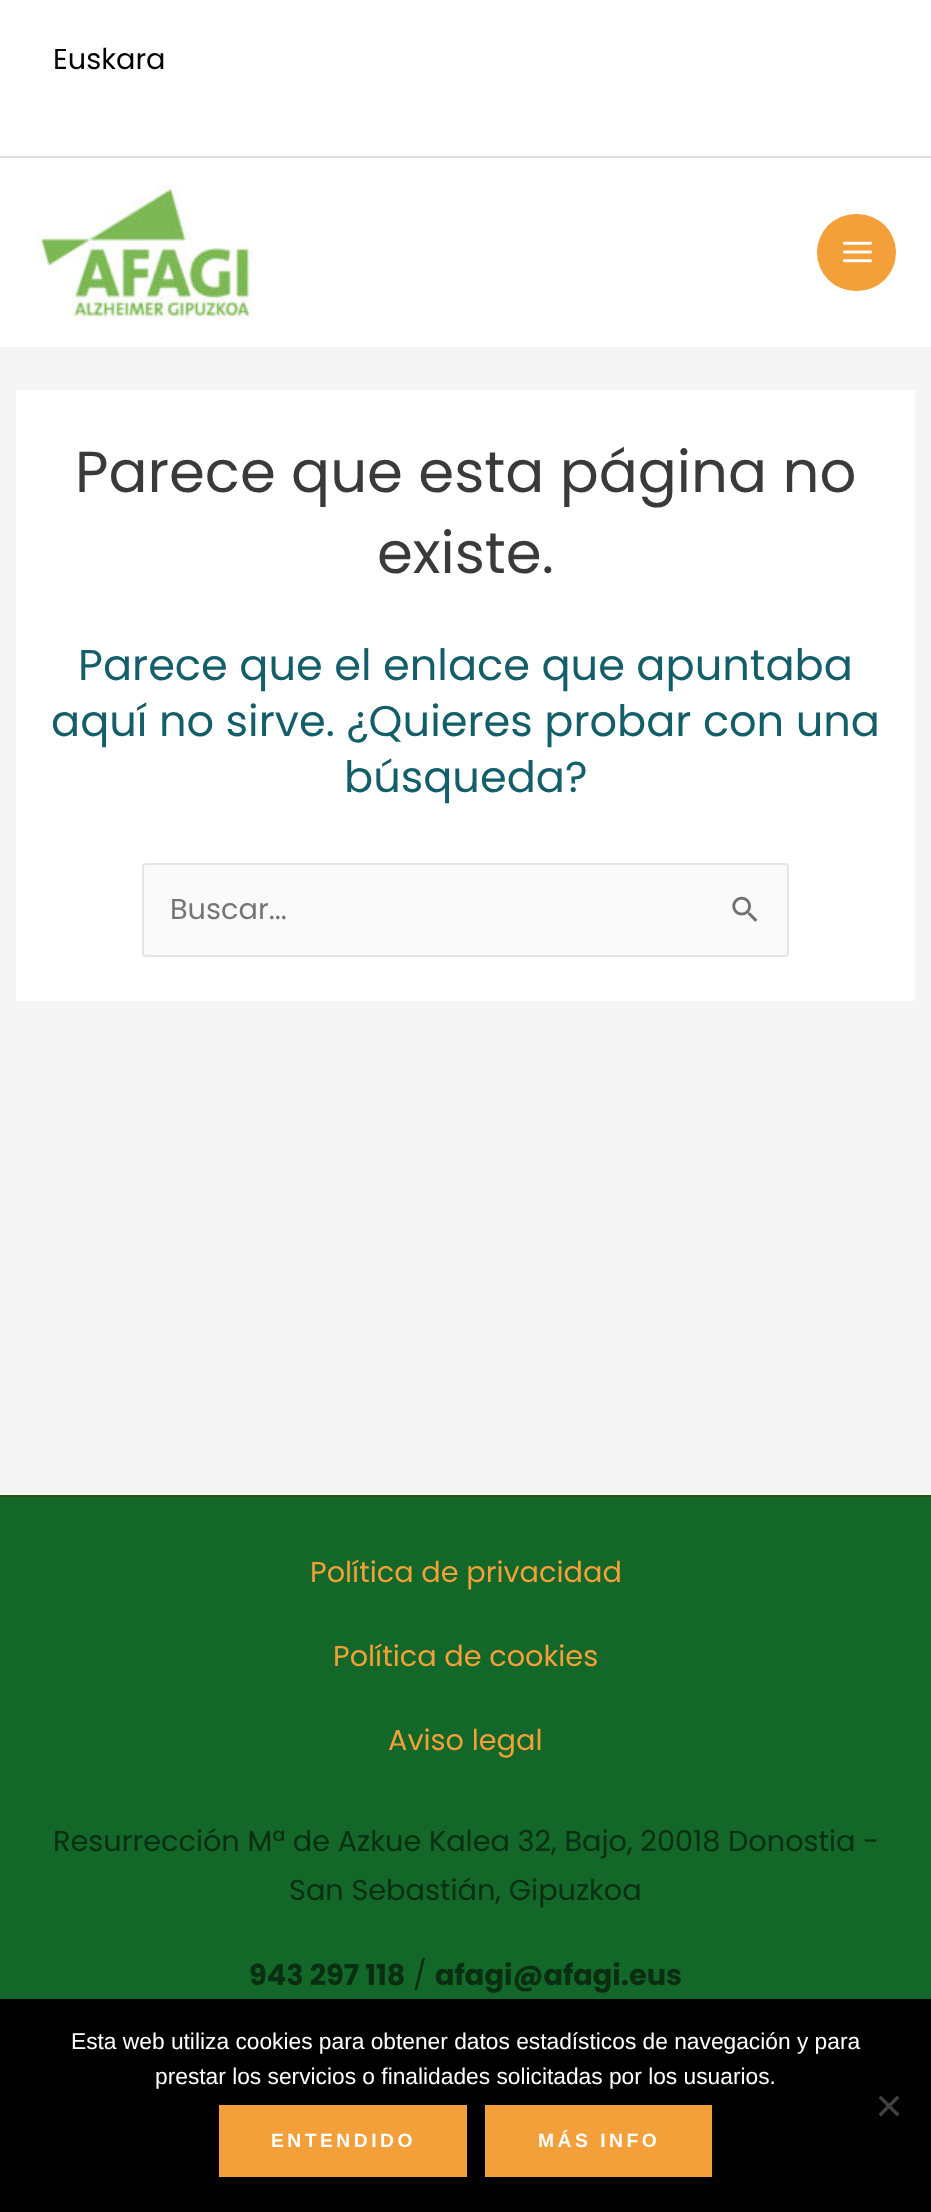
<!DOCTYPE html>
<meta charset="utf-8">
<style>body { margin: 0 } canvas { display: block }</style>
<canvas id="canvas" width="931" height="2212"></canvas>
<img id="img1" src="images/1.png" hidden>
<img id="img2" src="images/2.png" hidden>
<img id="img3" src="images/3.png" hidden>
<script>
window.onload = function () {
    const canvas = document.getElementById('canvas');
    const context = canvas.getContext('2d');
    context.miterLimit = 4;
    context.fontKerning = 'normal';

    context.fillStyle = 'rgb(245, 245, 245)';
    context.fillRect(0, 0, 931, 2212);
    context.fillStyle = 'rgb(255, 255, 255)';
    context.fillRect(0, 0, 931, 156);
    context.fillStyle = 'rgb(223, 223, 223)';
    context.fillRect(0, 156, 931, 2);
    context.fillStyle = 'rgb(255, 255, 255)';
    context.fillRect(0, 158, 931, 189);
    context.drawImage(document.getElementById('img1'), 35, 185, 219, 134);
    context.fillStyle = 'rgb(244, 160, 58)';
    context.beginPath();
    context.roundRect(817, 214, 79, 77, 38.5);
    context.fill();
    context.drawImage(document.getElementById('img2'), 842, 241, 31, 22);
    context.fillStyle = 'rgb(255, 255, 255)';
    context.fillRect(16, 390, 899, 611);
    context.fillStyle = 'rgb(250, 250, 250)';
    context.beginPath();
    context.roundRect(143, 864, 645, 92, 3);
    context.fill();
    context.strokeStyle = 'rgb(229, 229, 229)';
    context.lineWidth = 2;
    context.stroke();
    context.drawImage(document.getElementById('img3'), 732, 896, 26, 26);
    context.fillStyle = 'rgb(19, 103, 40)';
    context.fillRect(0, 1497, 931, 502);
    context.fillStyle = 'rgb(42, 79, 14)';
    context.fillRect(0, 1495, 931, 2);
    context.fillStyle = 'rgb(0, 0, 0)';
    context.fillRect(0, 1999, 931, 213);
    context.fillStyle = 'rgb(64, 64, 64)';
    context.beginPath();
    context.moveTo(897, 2095.5);
    context.lineTo(899.5, 2098);
    context.lineTo(881, 2116.5);
    context.lineTo(878.5, 2114);
    context.closePath();
    context.fill();
    context.beginPath();
    context.moveTo(878.5, 2098);
    context.lineTo(881, 2095.5);
    context.lineTo(899.5, 2114);
    context.lineTo(897, 2116.5);
    context.closePath();
    context.fill();
    context.fillStyle = 'rgb(244, 160, 58)';
    context.fillRect(219, 2105, 248, 72);
    context.fillRect(485, 2105, 227, 72);
    context.font = '28.75px Poppins';
    context.fillStyle = 'rgb(0, 0, 0)';
    context.fillText('Euskara', 53, 69);
    context.font = '57.75px Poppins';
    context.fillStyle = 'rgb(58, 58, 58)';
    context.fillText('Parece que esta página no', 75, 492);
    context.fillText('existe.', 377, 573);
    context.font = '43.1px Poppins';
    context.fillStyle = 'rgb(19, 94, 105)';
    context.fillText('Parece que el enlace que apuntaba', 78, 680);
    context.fillText('aquí no sirve. ¿Quieres probar con una', 51, 736);
    context.fillText('búsqueda?', 344, 792);
    context.font = '28.75px Poppins';
    context.fillStyle = 'rgb(117, 117, 117)';
    context.fillText('Buscar...', 170, 919);
    context.fillStyle = 'rgb(244, 160, 58)';
    context.fillText('Política de privacidad', 310, 1582);
    context.fillText('Política de cookies', 333, 1666);
    context.fillText('Aviso legal', 388, 1750);
    context.fillStyle = 'rgb(9, 46, 18)';
    context.fillText('Resurrección Mª de Azkue Kalea 32, Bajo, 20018 Donostia -', 53, 1851);
    context.fillText('San Sebastián, Gipuzkoa', 289, 1900);
    context.font = 'bold 28.75px Poppins';
    context.fillText('943 297 118', 249, 1985);
    context.font = '28.75px Poppins';
    context.fillText('/', 413, 1985);
    context.font = 'bold 28.75px Poppins';
    context.fillText('afagi@afagi.eus', 435, 1985);
    context.font = '22.75px Liberation Sans';
    context.fillStyle = 'rgb(255, 255, 255)';
    context.fillText('Esta web utiliza cookies para obtener datos estadísticos de navegación y para', 71, 2049);
    context.fillText('prestar los servicios o finalidades solicitadas por los usuarios.', 155, 2084);
    context.letterSpacing = '3.5px';
    context.font = 'bold 19.25px Liberation Sans';
    context.fillText('ENTENDIDO', 271, 2147);
    context.fillText('MÁS INFO', 538, 2147);
};
</script>
